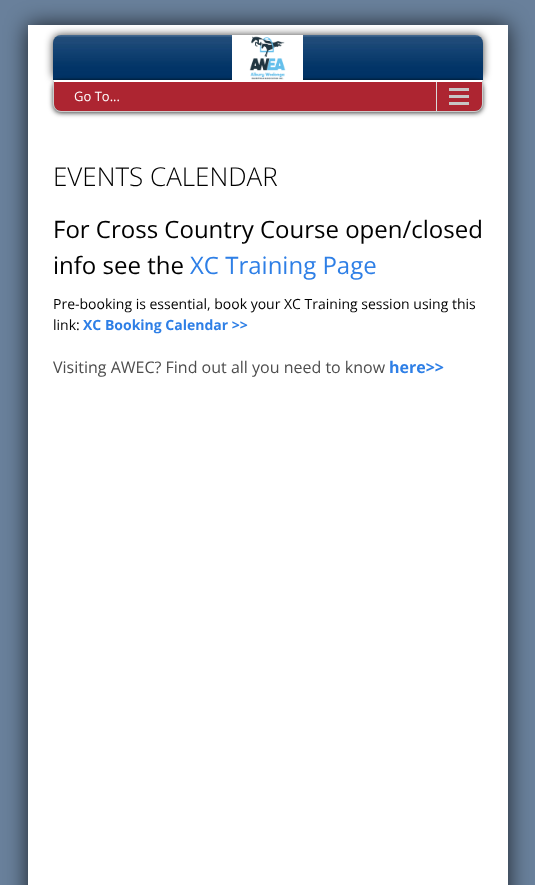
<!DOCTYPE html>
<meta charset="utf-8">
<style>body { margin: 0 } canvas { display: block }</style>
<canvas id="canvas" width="535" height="885"></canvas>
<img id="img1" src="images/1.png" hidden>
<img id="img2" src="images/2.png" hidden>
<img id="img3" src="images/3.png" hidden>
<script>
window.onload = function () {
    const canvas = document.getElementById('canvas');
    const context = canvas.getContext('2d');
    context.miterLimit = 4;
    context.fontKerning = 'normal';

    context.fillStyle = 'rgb(105, 128, 155)';
    context.fillRect(0, 0, 535, 885);
    context.fillStyle = 'rgba(0, 0, 0, 0.75)';
    context.filter = 'blur(11px)';
    context.beginPath();
    context.rect(28, 25, 480, 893);
    context.fill();
    context.filter = 'none';
    context.fillStyle = 'rgb(255, 255, 255)';
    context.fillRect(28, 25, 480, 860);
    context.fillStyle = 'rgba(0, 0, 0, 0.75)';
    context.filter = 'blur(4px)';
    context.beginPath();
    context.roundRect(53, 35, 430, 45, 8);
    context.fill();
    context.filter = 'none';
    context.drawImage(document.getElementById('img1'), 53, 35, 430, 45);
    context.filter = 'blur(2.5px)';
    context.beginPath();
    context.roundRect(53, 81, 430, 32, 8);
    context.fill();
    context.filter = 'none';
    context.drawImage(document.getElementById('img2'), 232, 35, 71, 45);
    context.fillStyle = 'rgb(173, 37, 49)';
    context.beginPath();
    context.roundRect(54, 82, 428, 29, [0, 0, 7, 7]);
    context.fill();
    context.drawImage(document.getElementById('img3'), 436, 82, 33, 29);
    context.fillStyle = 'rgb(255, 255, 255)';
    context.beginPath();
    context.moveTo(53, 80);
    context.lineTo(54, 82);
    context.lineTo(482, 82);
    context.lineTo(483, 80);
    context.closePath();
    context.fill();
    context.fillStyle = 'rgb(204, 204, 204)';
    context.beginPath();
    context.moveTo(483, 80);
    context.lineTo(482, 82);
    context.lineTo(482, 104);
    context.bezierCurveTo(482, 106, 481, 108, 480, 109);
    context.lineTo(480.5, 109.5);
    context.bezierCurveTo(482, 108, 483, 106, 483, 104);
    context.closePath();
    context.fill();
    context.beginPath();
    context.moveTo(61, 112);
    context.lineTo(475, 112);
    context.bezierCurveTo(477, 112, 479, 111, 480, 110);
    context.lineTo(480, 109);
    context.bezierCurveTo(479, 110, 477, 111, 475, 111);
    context.lineTo(61, 111);
    context.bezierCurveTo(59, 111, 57, 110, 56, 109);
    context.lineTo(56, 110);
    context.bezierCurveTo(57, 111, 59, 112, 61, 112);
    context.closePath();
    context.fill();
    context.beginPath();
    context.moveTo(54, 82);
    context.lineTo(53, 80);
    context.lineTo(53, 104);
    context.bezierCurveTo(53, 106, 54, 108, 55.5, 109.5);
    context.lineTo(56, 109);
    context.bezierCurveTo(55, 108, 54, 106, 54, 104);
    context.closePath();
    context.fill();
    context.font = '13px Open Sans';
    context.fillStyle = 'rgb(255, 255, 255)';
    context.fillText('Go To...', 74, 101);
    context.font = '300 26px Open Sans';
    context.fillStyle = 'rgb(0, 0, 0)';
    context.fillText('EVENTS CALENDAR', 53, 186);
    context.font = '24px Open Sans';
    context.fillText('For Cross Country Course open/closed', 53, 238);
    context.fillText('info see the', 53, 274);
    context.fillStyle = 'rgb(46, 127, 230)';
    context.fillText('XC Training Page', 190, 274);
    context.font = '14px Open Sans';
    context.fillStyle = 'rgb(0, 0, 0)';
    context.fillText('Pre-booking is essential, book your XC Training session using this', 53, 309);
    context.fillText('link:', 53, 330);
    context.font = 'bold 14px Open Sans';
    context.fillStyle = 'rgb(46, 127, 230)';
    context.fillText('XC Booking Calendar >>', 83, 330);
    context.font = '16px Open Sans';
    context.fillStyle = 'rgb(77, 77, 77)';
    context.fillText('Visiting AWEC? Find out all you need to know', 53, 373);
    context.font = 'bold 16px Open Sans';
    context.fillStyle = 'rgb(46, 127, 230)';
    context.fillText('here>>', 389, 373);
};
</script>
